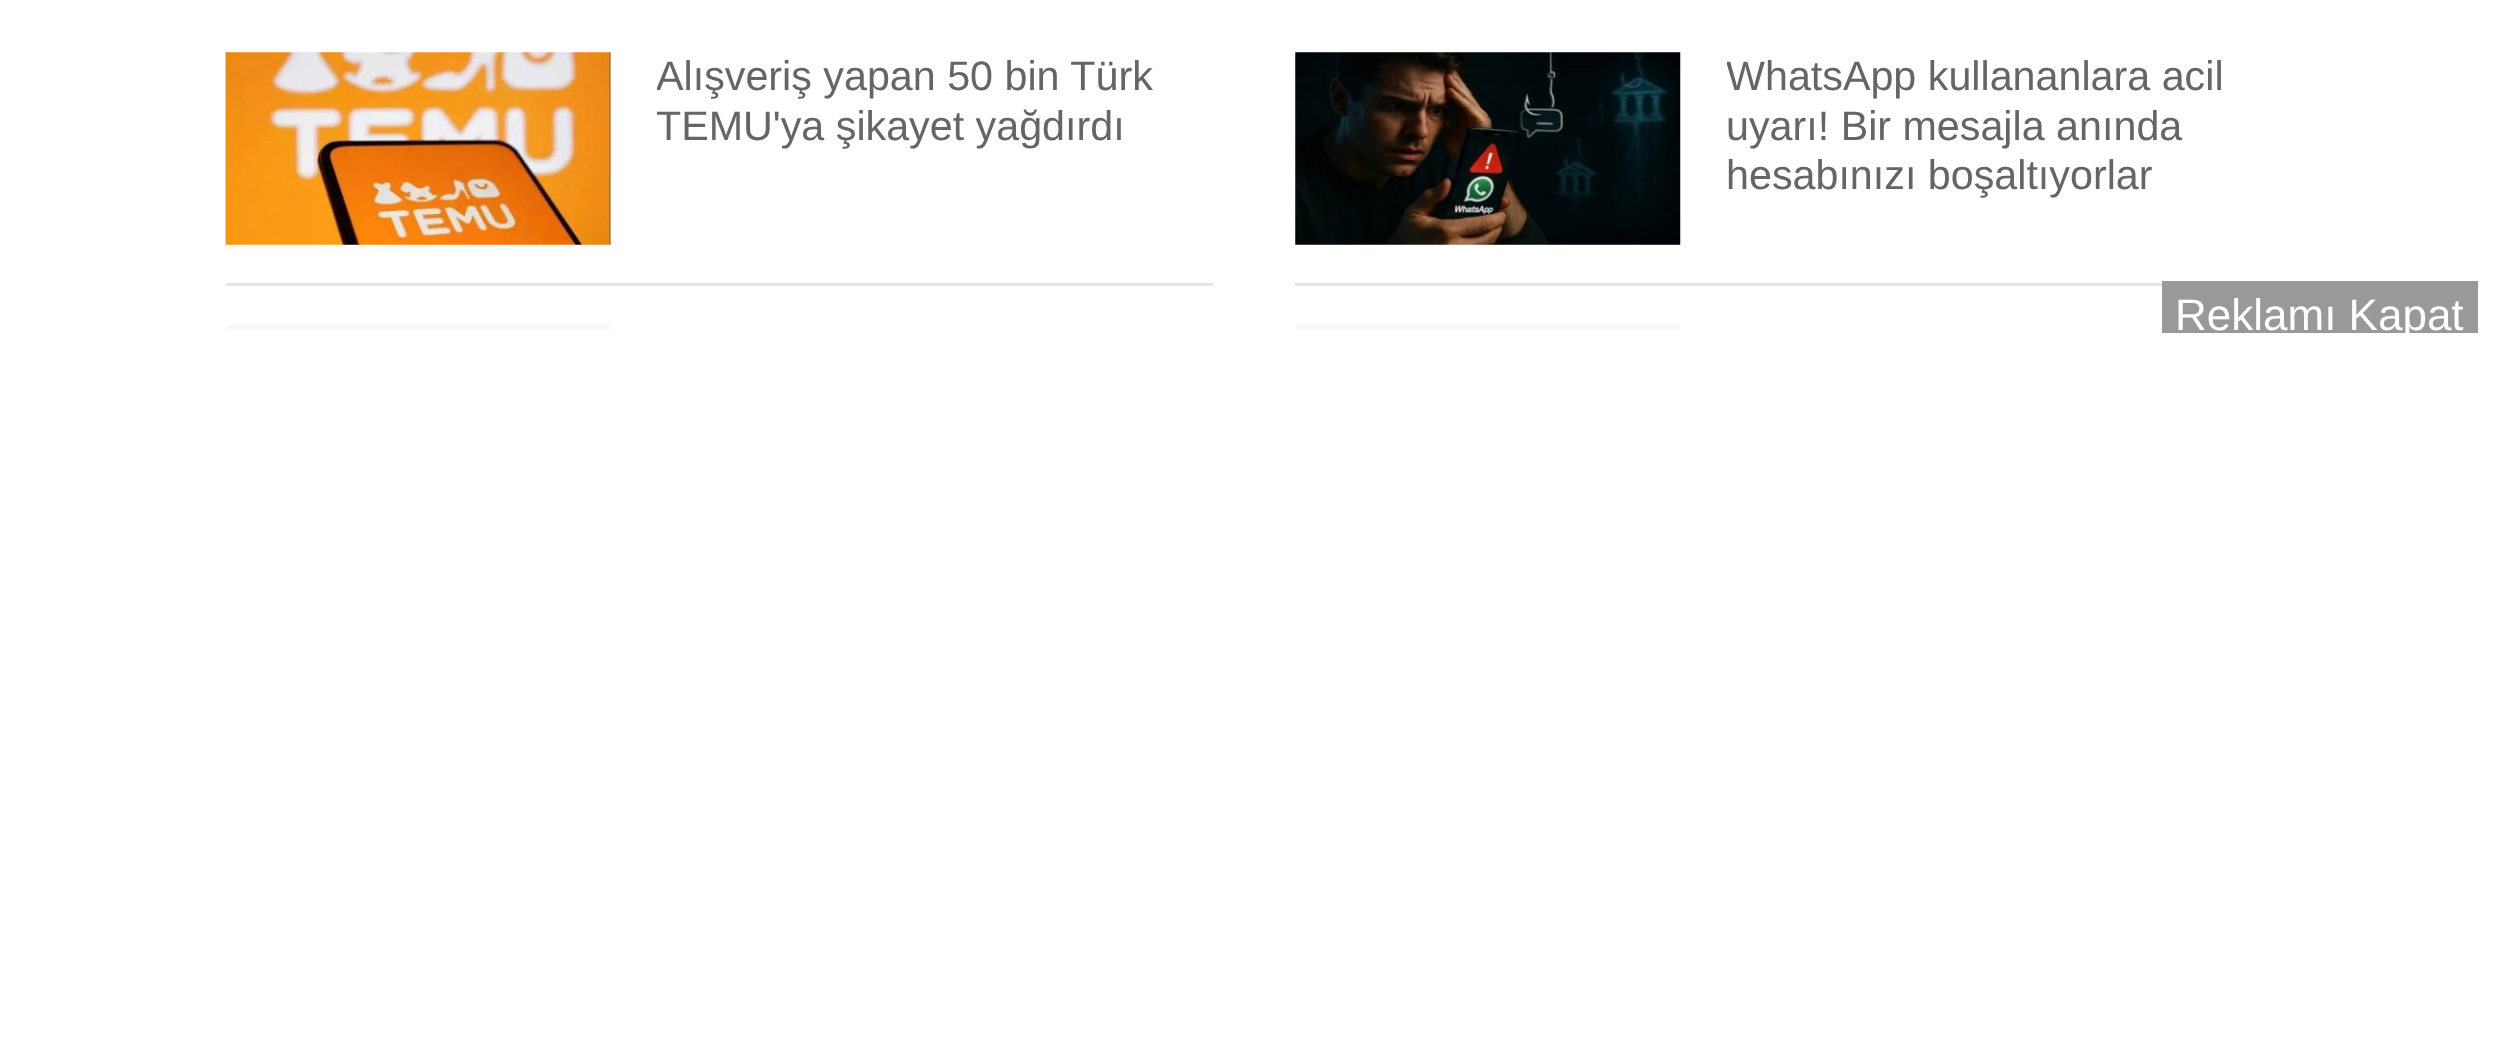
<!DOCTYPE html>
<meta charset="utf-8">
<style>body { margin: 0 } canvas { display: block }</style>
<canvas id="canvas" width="2503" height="1063"></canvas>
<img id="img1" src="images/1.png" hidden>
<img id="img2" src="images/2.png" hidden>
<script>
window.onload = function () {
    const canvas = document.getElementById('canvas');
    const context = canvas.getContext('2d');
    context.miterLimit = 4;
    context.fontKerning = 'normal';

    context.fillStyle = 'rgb(255, 255, 255)';
    context.fillRect(0, 0, 2503, 1063);
    context.fillStyle = 'rgb(229, 229, 229)';
    context.fillRect(226, 283, 987, 3);
    context.fillStyle = 'rgb(248, 248, 248)';
    context.fillRect(226, 52, 385, 193);
    context.drawImage(document.getElementById('img1'), 225, 52, 386, 193);
    context.fillStyle = 'rgb(229, 229, 229)';
    context.fillRect(1295, 283, 867, 3);
    context.fillStyle = 'rgb(248, 248, 248)';
    context.fillRect(1295, 52, 385, 193);
    context.drawImage(document.getElementById('img2'), 1295, 52, 386, 193);
    context.fillRect(226, 325, 385, 5);
    context.fillRect(1295, 325, 385, 5);
    context.fillStyle = 'rgb(153, 153, 153)';
    context.fillRect(2162, 281, 316, 52);
    context.save();
    context.beginPath();
    context.rect(657, 52, 556, 99);
    context.clip();
    context.font = '41.25px Liberation Sans';
    context.fillStyle = 'rgb(101, 101, 101)';
    context.fillText('Alışveriş yapan 50 bin Türk', 656, 90);
    context.fillText('TEMU\'ya şikayet yağdırdı', 656, 140);
    context.restore();
    context.save();
    context.beginPath();
    context.rect(1727, 52, 556, 149);
    context.clip();
    context.font = '41.25px Liberation Sans';
    context.fillStyle = 'rgb(101, 101, 101)';
    context.fillText('WhatsApp kullananlara acil', 1726, 90);
    context.restore();
    context.font = '41.25px Liberation Sans';
    context.fillStyle = 'rgb(101, 101, 101)';
    context.fillText('uyarı! Bir mesajla anında', 1726, 140);
    context.fillText('hesabınızı boşaltıyorlar', 1726, 189);
    context.font = '44px Liberation Sans';
    context.fillStyle = 'rgb(255, 255, 255)';
    context.fillText('Reklamı Kapat', 2175, 330);
};
</script>
